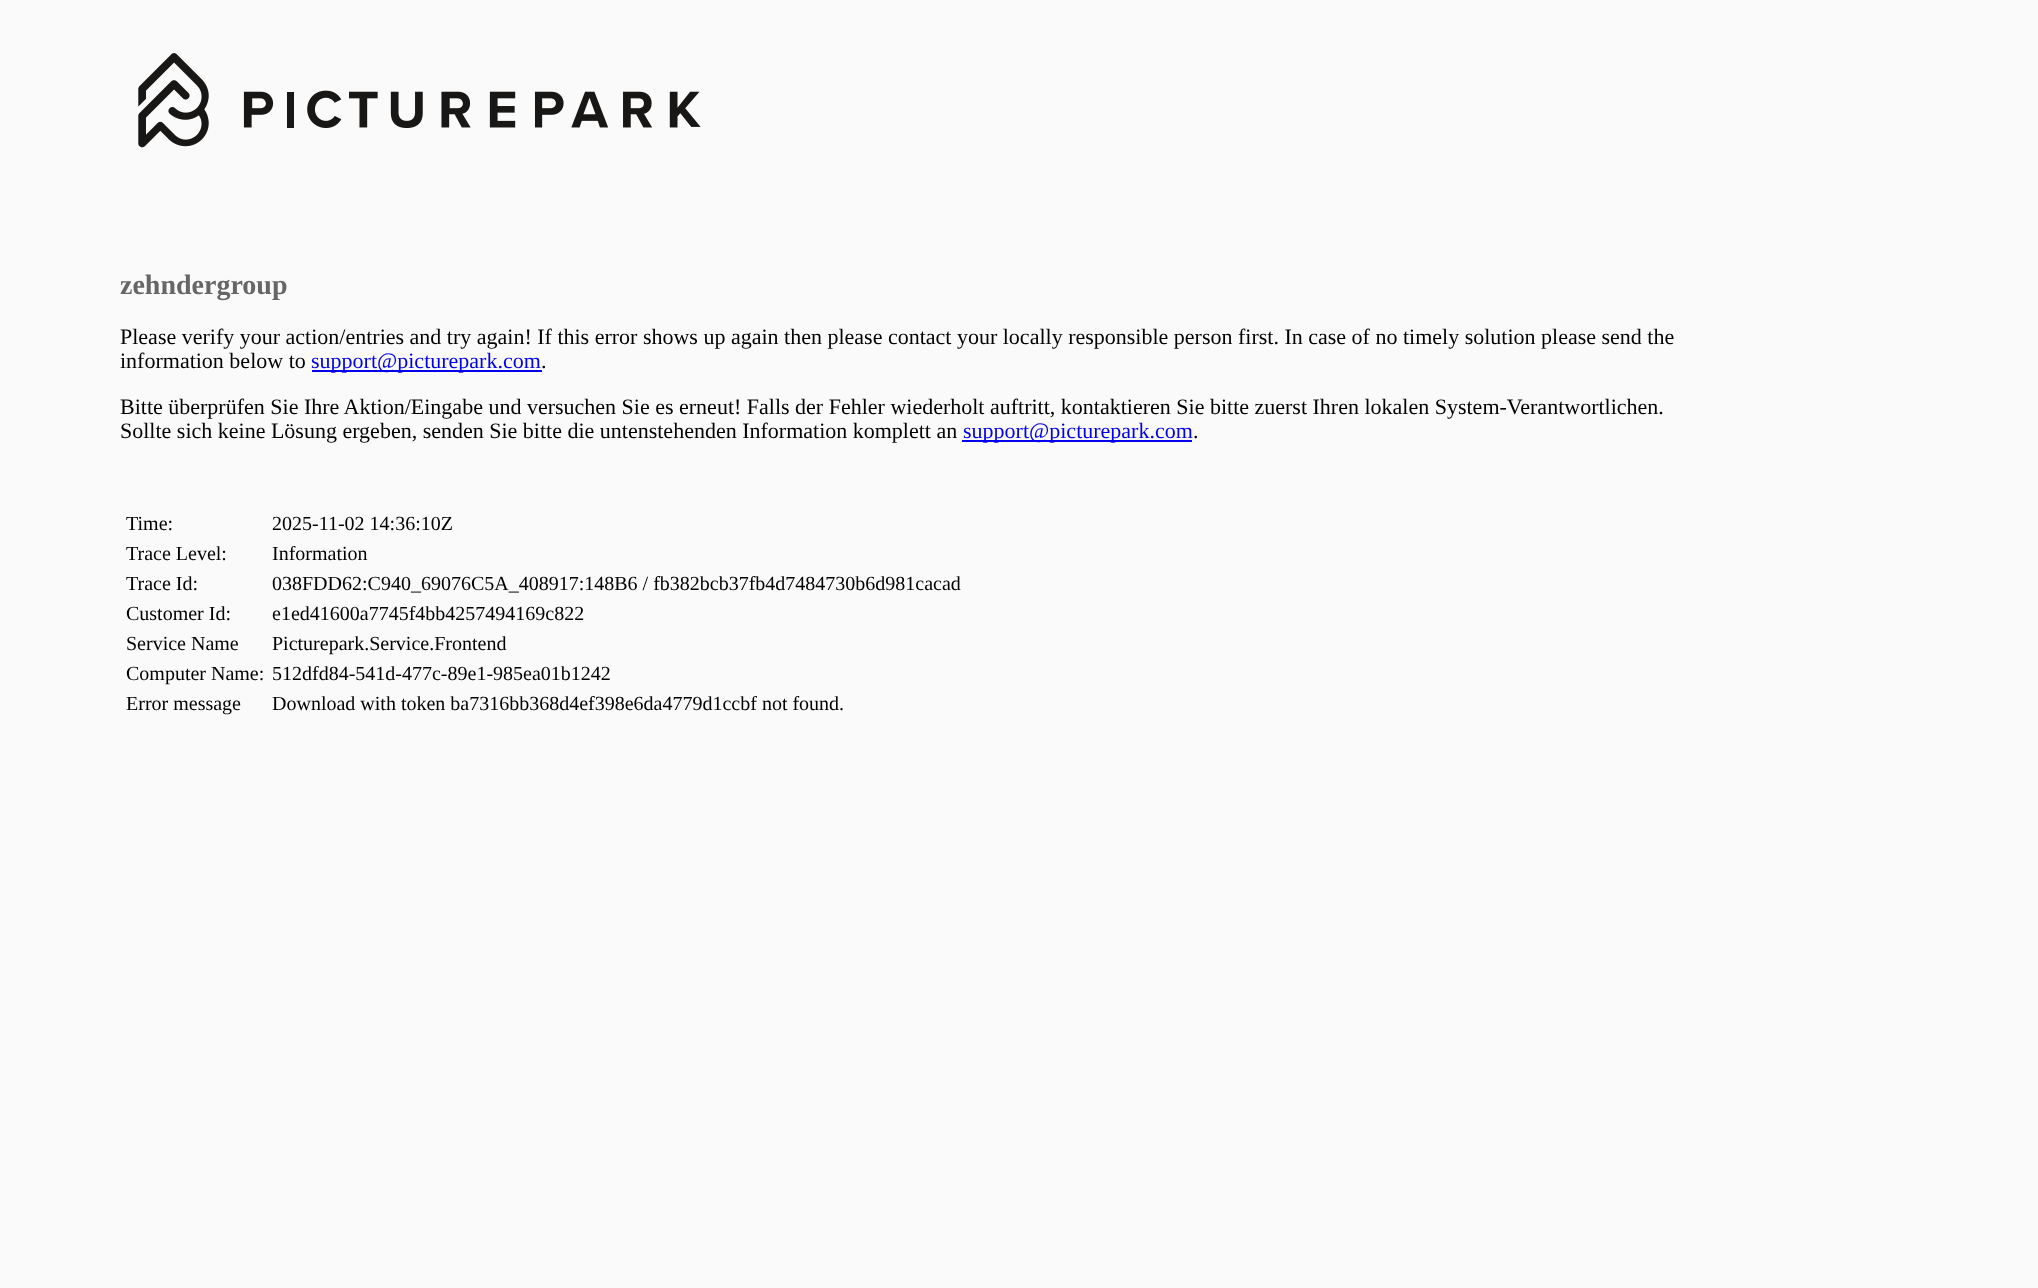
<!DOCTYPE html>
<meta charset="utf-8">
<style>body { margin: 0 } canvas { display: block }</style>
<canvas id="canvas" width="2038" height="1288"></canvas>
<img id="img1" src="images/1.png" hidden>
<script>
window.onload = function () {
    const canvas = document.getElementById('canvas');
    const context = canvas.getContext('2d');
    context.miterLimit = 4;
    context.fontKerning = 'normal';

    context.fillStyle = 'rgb(250, 250, 250)';
    context.fillRect(0, 0, 2038, 1288);
    context.drawImage(document.getElementById('img1'), 138, 53, 563, 95);
    context.fillStyle = 'rgb(0, 0, 238)';
    context.fillRect(312, 370, 230, 2);
    context.fillRect(962, 440, 230, 2);
    context.font = 'bold 28px Liberation Serif';
    context.fillStyle = 'rgb(102, 102, 102)';
    context.fillText('zehndergroup', 120, 294);
    context.font = '22px Liberation Serif';
    context.fillStyle = 'rgb(0, 0, 0)';
    context.fillText('Please verify your action/entries and try again! If this error shows up again then please contact your locally responsible person first. In case of no timely solution please send the', 120, 344);
    context.fillText('information below to', 120, 368);
    context.fillStyle = 'rgb(0, 0, 238)';
    context.fillText('support@picturepark.com', 311, 368);
    context.fillStyle = 'rgb(0, 0, 0)';
    context.fillText('.', 541, 368);
    context.fillText('Bitte überprüfen Sie Ihre Aktion/Eingabe und versuchen Sie es erneut! Falls der Fehler wiederholt auftritt, kontaktieren Sie bitte zuerst Ihren lokalen System-Verantwortlichen.', 120, 414);
    context.fillText('Sollte sich keine Lösung ergeben, senden Sie bitte die untenstehenden Information komplett an', 120, 438);
    context.fillStyle = 'rgb(0, 0, 238)';
    context.fillText('support@picturepark.com', 963, 438);
    context.fillStyle = 'rgb(0, 0, 0)';
    context.fillText('.', 1193, 438);
    context.font = '20px Liberation Serif';
    context.fillText('Time:', 126, 530);
    context.fillText('2025-11-02 14:36:10Z', 272, 530);
    context.fillText('Trace Level:', 126, 560);
    context.fillText('Information', 272, 560);
    context.fillText('Trace Id:', 126, 590);
    context.fillText('038FDD62:C940_69076C5A_408917:148B6 / fb382bcb37fb4d7484730b6d981cacad', 272, 590);
    context.fillText('Customer Id:', 126, 620);
    context.fillText('e1ed41600a7745f4bb4257494169c822', 272, 620);
    context.fillText('Service Name', 126, 650);
    context.fillText('Picturepark.Service.Frontend', 272, 650);
    context.fillText('Computer Name:', 126, 680);
    context.fillText('512dfd84-541d-477c-89e1-985ea01b1242', 272, 680);
    context.fillText('Error message', 126, 710);
    context.fillText('Download with token ba7316bb368d4ef398e6da4779d1ccbf not found.', 272, 710);
};
</script>
